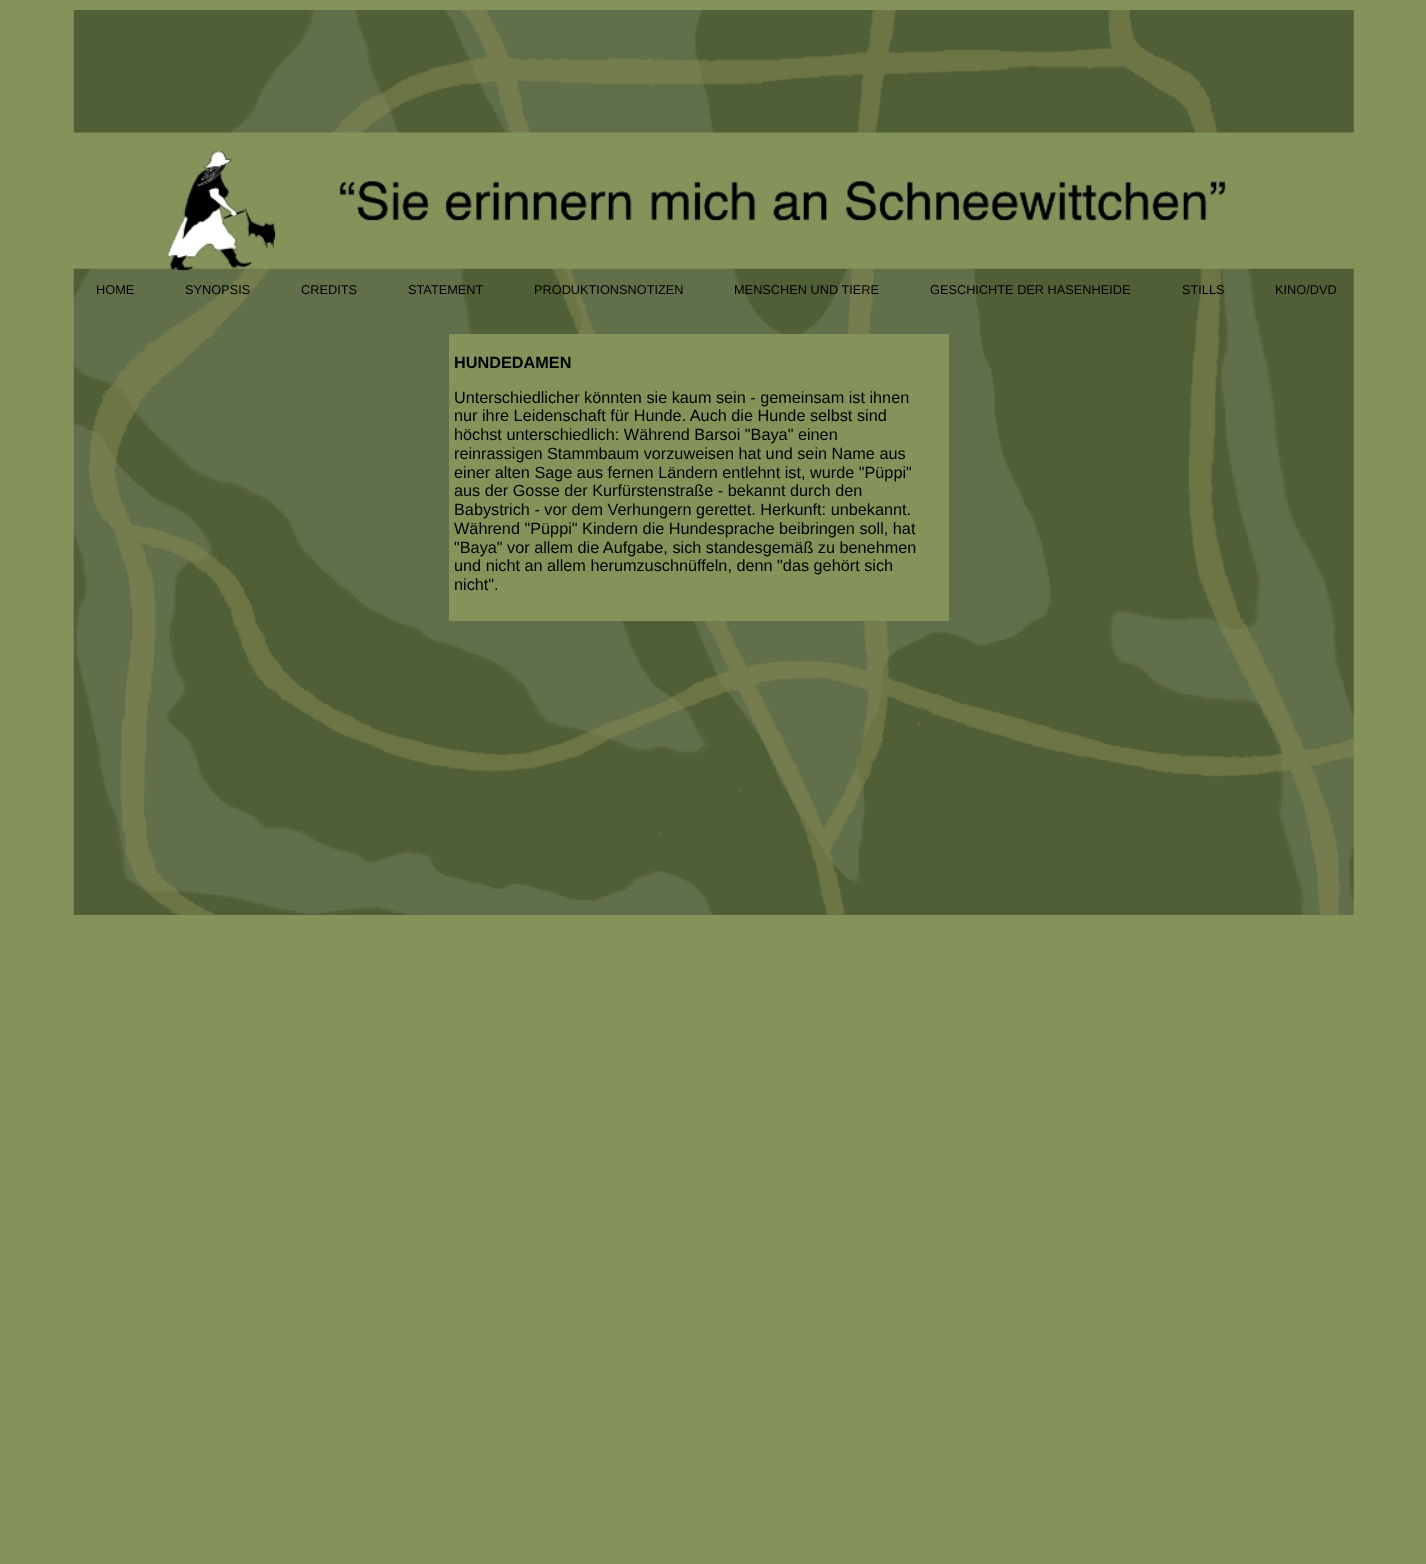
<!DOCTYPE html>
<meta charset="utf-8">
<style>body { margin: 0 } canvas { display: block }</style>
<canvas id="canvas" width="1426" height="1564"></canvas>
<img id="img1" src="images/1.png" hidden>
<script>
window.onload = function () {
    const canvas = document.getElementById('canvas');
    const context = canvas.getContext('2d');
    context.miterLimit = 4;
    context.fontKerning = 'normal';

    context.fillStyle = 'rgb(132, 147, 90)';
    context.fillRect(0, 0, 1426, 1564);
    context.drawImage(document.getElementById('img1'), 73, 10, 1281, 905);
    context.fillRect(449, 334, 500, 287);
    context.font = '12.75px Liberation Sans';
    context.fillStyle = 'rgb(0, 0, 0)';
    context.fillText('HOME', 96, 294);
    context.fillText('SYNOPSIS', 185, 294);
    context.fillText('CREDITS', 301, 294);
    context.fillText('STATEMENT', 408, 294);
    context.fillText('PRODUKTIONSNOTIZEN', 534, 294);
    context.fillText('MENSCHEN UND TIERE', 734, 294);
    context.fillText('GESCHICHTE DER HASENHEIDE', 930, 294);
    context.fillText('STILLS', 1182, 294);
    context.fillText('KINO/DVD', 1275, 294);
    context.font = 'bold 16.25px Liberation Sans';
    context.fillText('HUNDEDAMEN', 454, 368);
    context.font = '16.25px Liberation Sans';
    context.fillText('Unterschiedlicher könnten sie kaum sein - gemeinsam ist ihnen', 454, 403);
    context.fillText('nur ihre Leidenschaft für Hunde. Auch die Hunde selbst sind', 454, 421);
    context.fillText('höchst unterschiedlich: Während Barsoi "Baya" einen', 454, 440);
    context.fillText('reinrassigen Stammbaum vorzuweisen hat und sein Name aus', 454, 459);
    context.fillText('einer alten Sage aus fernen Ländern entlehnt ist, wurde "Püppi"', 454, 478);
    context.fillText('aus der Gosse der Kurfürstenstraße - bekannt durch den', 454, 496);
    context.fillText('Babystrich - vor dem Verhungern gerettet. Herkunft: unbekannt.', 454, 515);
    context.fillText('Während "Püppi" Kindern die Hundesprache beibringen soll, hat', 454, 534);
    context.fillText('"Baya" vor allem die Aufgabe, sich standesgemäß zu benehmen', 454, 553);
    context.fillText('und nicht an allem herumzuschnüffeln, denn "das gehört sich', 454, 571);
    context.fillText('nicht".', 454, 590);
};
</script>
